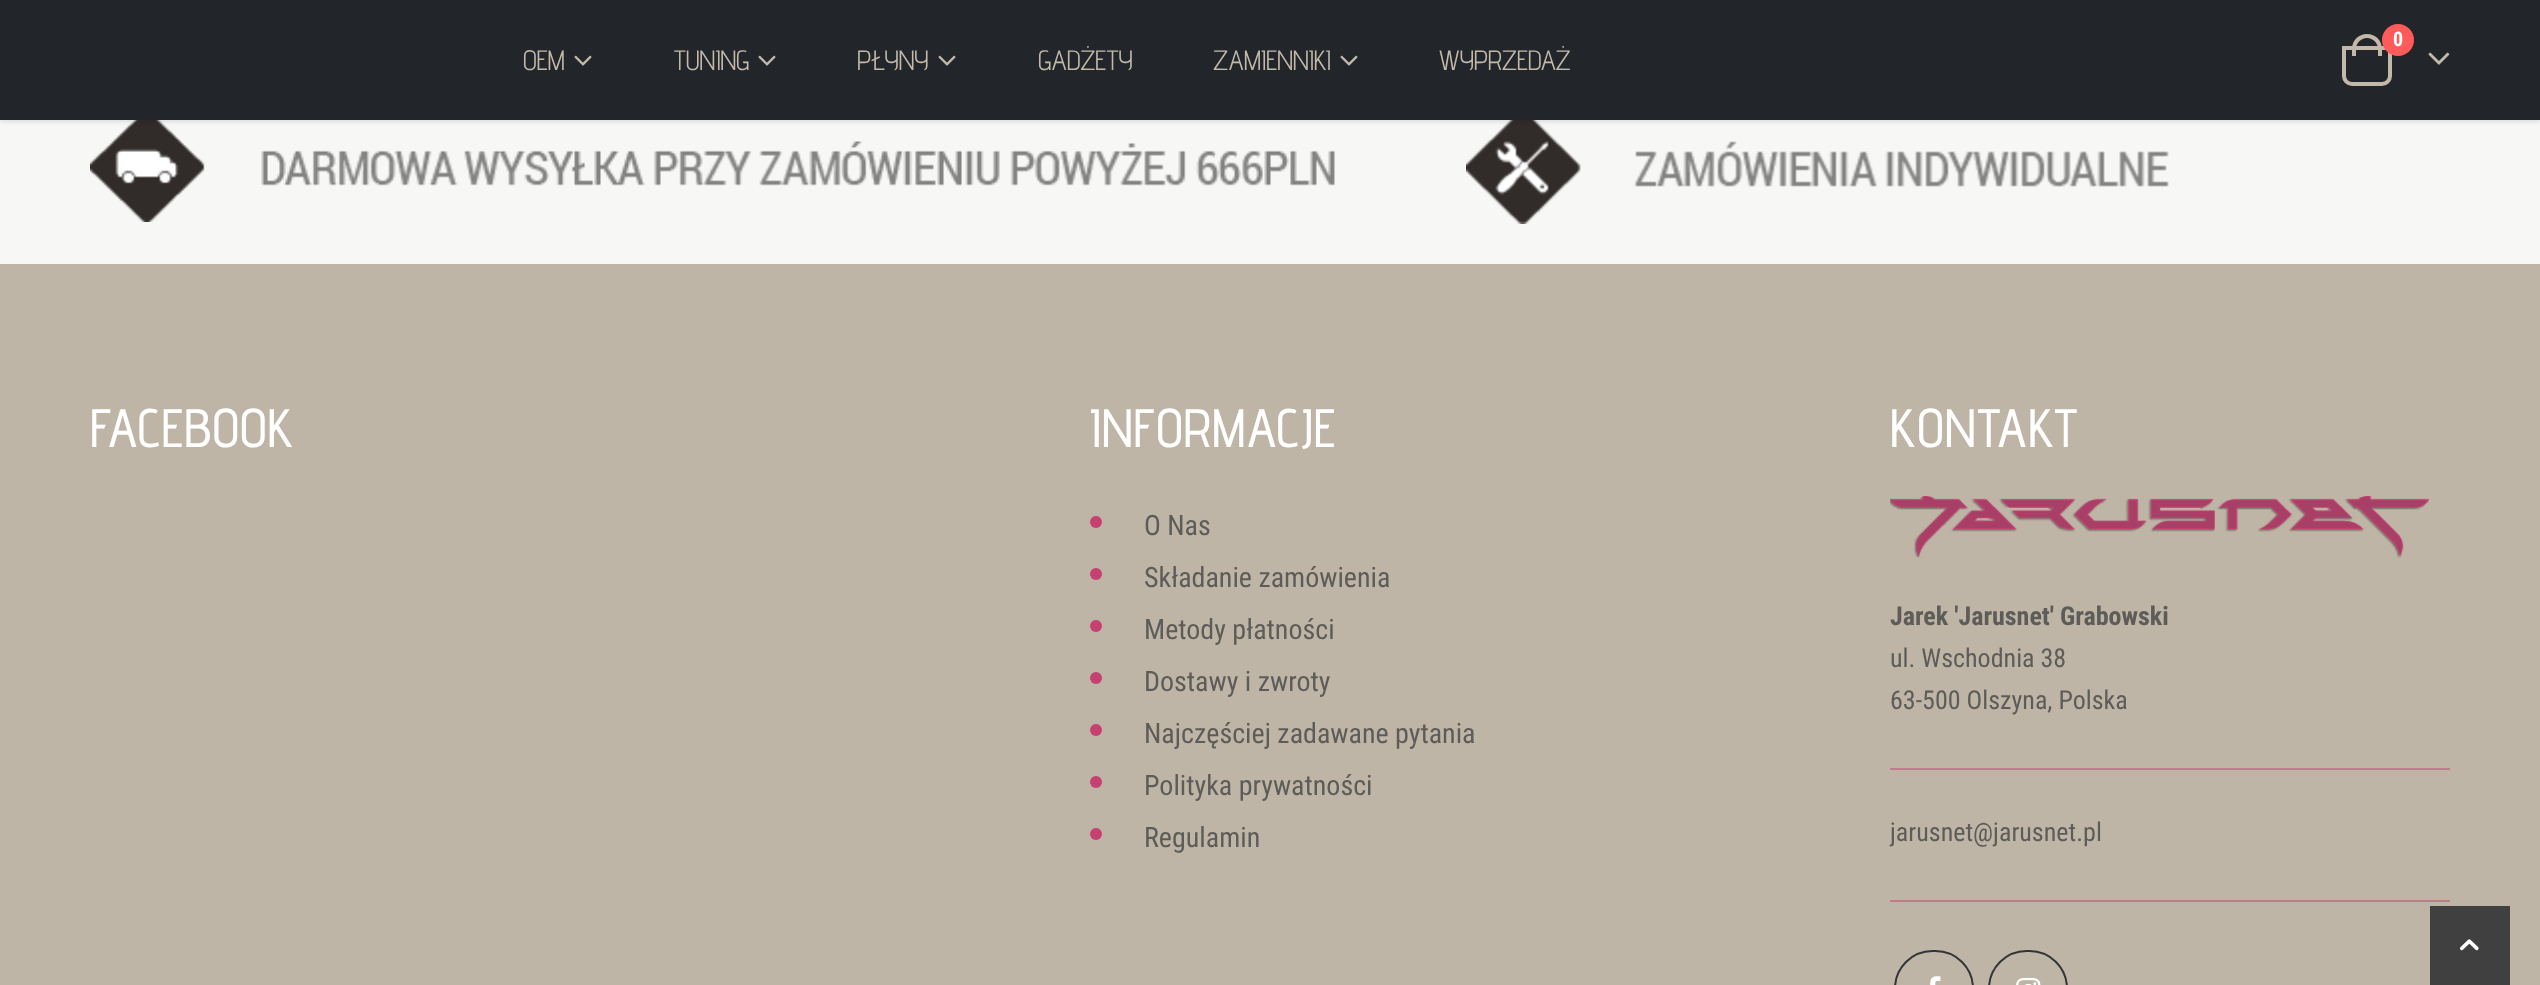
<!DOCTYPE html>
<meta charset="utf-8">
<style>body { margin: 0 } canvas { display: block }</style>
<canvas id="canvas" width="2540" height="985"></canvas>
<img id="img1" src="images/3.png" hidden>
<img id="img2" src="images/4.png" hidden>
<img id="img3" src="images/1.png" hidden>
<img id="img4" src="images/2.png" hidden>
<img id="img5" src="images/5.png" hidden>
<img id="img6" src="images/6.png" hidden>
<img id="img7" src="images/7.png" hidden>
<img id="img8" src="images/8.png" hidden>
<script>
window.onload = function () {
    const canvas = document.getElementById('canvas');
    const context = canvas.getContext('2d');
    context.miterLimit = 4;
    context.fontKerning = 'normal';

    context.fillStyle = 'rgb(247, 247, 246)';
    context.fillRect(0, 0, 2540, 985);
    context.drawImage(document.getElementById('img1'), 90, 120, 1245, 102);
    context.drawImage(document.getElementById('img2'), 1466, 120, 703, 104);
    context.fillStyle = 'rgba(0, 0, 0, 0.1)';
    context.filter = 'blur(2px)';
    context.beginPath();
    context.rect(0, 2, 2540, 120);
    context.fill();
    context.filter = 'none';
    context.fillStyle = 'rgb(34, 37, 41)';
    context.fillRect(0, 0, 2540, 120);
    context.beginPath();
    context.roundRect(2344, 48, 46, 36, [0, 0, 8, 8]);
    context.strokeStyle = 'rgb(194, 185, 170)';
    context.lineWidth = 4;
    context.stroke();
    context.fillStyle = 'rgb(194, 185, 170)';
    context.beginPath();
    context.moveTo(2367, 34);
    context.bezierCurveTo(2375.5, 34, 2382, 40.5, 2382, 49);
    context.lineTo(2382, 56);
    context.lineTo(2352, 56);
    context.lineTo(2352, 49);
    context.bezierCurveTo(2352, 40.5, 2358.5, 34, 2367, 34);
    context.closePath();
    context.moveTo(2367, 38);
    context.bezierCurveTo(2373, 38, 2378, 43, 2378, 49);
    context.lineTo(2378, 56);
    context.lineTo(2356, 56);
    context.lineTo(2356, 49);
    context.bezierCurveTo(2356, 43, 2361, 38, 2367, 38);
    context.closePath();
    context.fill('evenodd');
    context.fillStyle = 'rgb(255, 91, 91)';
    context.beginPath();
    context.arc(2398, 40, 16, 0, 2 * Math.PI);
    context.fill();
    context.drawImage(document.getElementById('img3'), 2428, 52, 22, 13);
    context.drawImage(document.getElementById('img4'), 574, 55, 18, 11);
    context.drawImage(document.getElementById('img4'), 758, 55, 18, 11);
    context.drawImage(document.getElementById('img4'), 938, 55, 18, 11);
    context.drawImage(document.getElementById('img4'), 1340, 55, 18, 11);
    context.fillStyle = 'rgb(191, 181, 166)';
    context.fillRect(0, 264, 2540, 721);
    context.fillStyle = 'rgb(198, 64, 114)';
    context.beginPath();
    context.arc(1096, 522, 6, 0, 2 * Math.PI);
    context.fill();
    context.beginPath();
    context.arc(1096, 574, 6, 0, 2 * Math.PI);
    context.fill();
    context.beginPath();
    context.arc(1096, 626, 6, 0, 2 * Math.PI);
    context.fill();
    context.beginPath();
    context.arc(1096, 678, 6, 0, 2 * Math.PI);
    context.fill();
    context.beginPath();
    context.arc(1096, 730, 6, 0, 2 * Math.PI);
    context.fill();
    context.beginPath();
    context.arc(1096, 782, 6, 0, 2 * Math.PI);
    context.fill();
    context.beginPath();
    context.arc(1096, 834, 6, 0, 2 * Math.PI);
    context.fill();
    context.drawImage(document.getElementById('img5'), 1890, 496, 540, 62);
    context.fillStyle = 'rgb(195, 122, 140)';
    context.fillRect(1890, 768, 560, 2);
    context.fillRect(1890, 900, 560, 2);
    context.beginPath();
    context.roundRect(1895, 951, 78, 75, 39);
    context.strokeStyle = 'rgb(49, 52, 56)';
    context.lineWidth = 2;
    context.stroke();
    context.drawImage(document.getElementById('img6'), 1930, 976, 11, 9);
    context.beginPath();
    context.roundRect(1989, 951, 78, 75, 39);
    context.stroke();
    context.drawImage(document.getElementById('img7'), 2016, 977, 25, 8);
    context.fillStyle = 'rgb(64, 64, 64)';
    context.fillRect(2430, 906, 80, 79);
    context.drawImage(document.getElementById('img8'), 2460, 939, 19, 12);
    context.font = 'bold 20px Roboto Condensed';
    context.fillStyle = 'rgb(255, 255, 255)';
    context.fillText('0', 2393, 46);
    context.letterSpacing = '-0.5px';
    context.font = '28px Advent Pro';
    context.fillStyle = 'rgb(194, 185, 170)';
    context.fillText('OEM', 523, 70);
    context.fillText('TUNING', 674, 70);
    context.fillText('PŁYNY', 857, 70);
    context.fillText('GADŻETY', 1038, 70);
    context.fillText('ZAMIENNIKI', 1213, 70);
    context.fillText('WYPRZEDAŻ', 1439, 70);
    context.letterSpacing = '0.5px';
    context.font = '500 54px Advent Pro';
    context.fillStyle = 'rgb(255, 255, 255)';
    context.fillText('FACEBOOK', 90, 447);
    context.fillText('INFORMACJE', 1090, 447);
    context.letterSpacing = '0px';
    context.font = '28px Roboto Condensed';
    context.fillStyle = 'rgb(94, 92, 88)';
    context.fillText('O Nas', 1144, 535);
    context.fillText('Składanie zamówienia', 1144, 587);
    context.fillText('Metody płatności', 1144, 639);
    context.fillText('Dostawy i zwroty', 1144, 691);
    context.fillText('Najczęściej zadawane pytania', 1144, 743);
    context.fillText('Polityka prywatności', 1144, 795);
    context.fillText('Regulamin', 1144, 847);
    context.letterSpacing = '0.5px';
    context.font = '500 54px Advent Pro';
    context.fillStyle = 'rgb(255, 255, 255)';
    context.fillText('KONTAKT', 1890, 447);
    context.letterSpacing = '0px';
    context.font = 'bold 26px Roboto Condensed';
    context.fillStyle = 'rgb(94, 92, 88)';
    context.fillText('Jarek \'Jarusnet\' Grabowski', 1890, 625);
    context.font = '26px Roboto Condensed';
    context.fillText('ul. Wschodnia 38', 1890, 667);
    context.fillText('63-500 Olszyna, Polska', 1890, 709);
    context.fillText('jarusnet@jarusnet.pl', 1890, 841);
};
</script>
